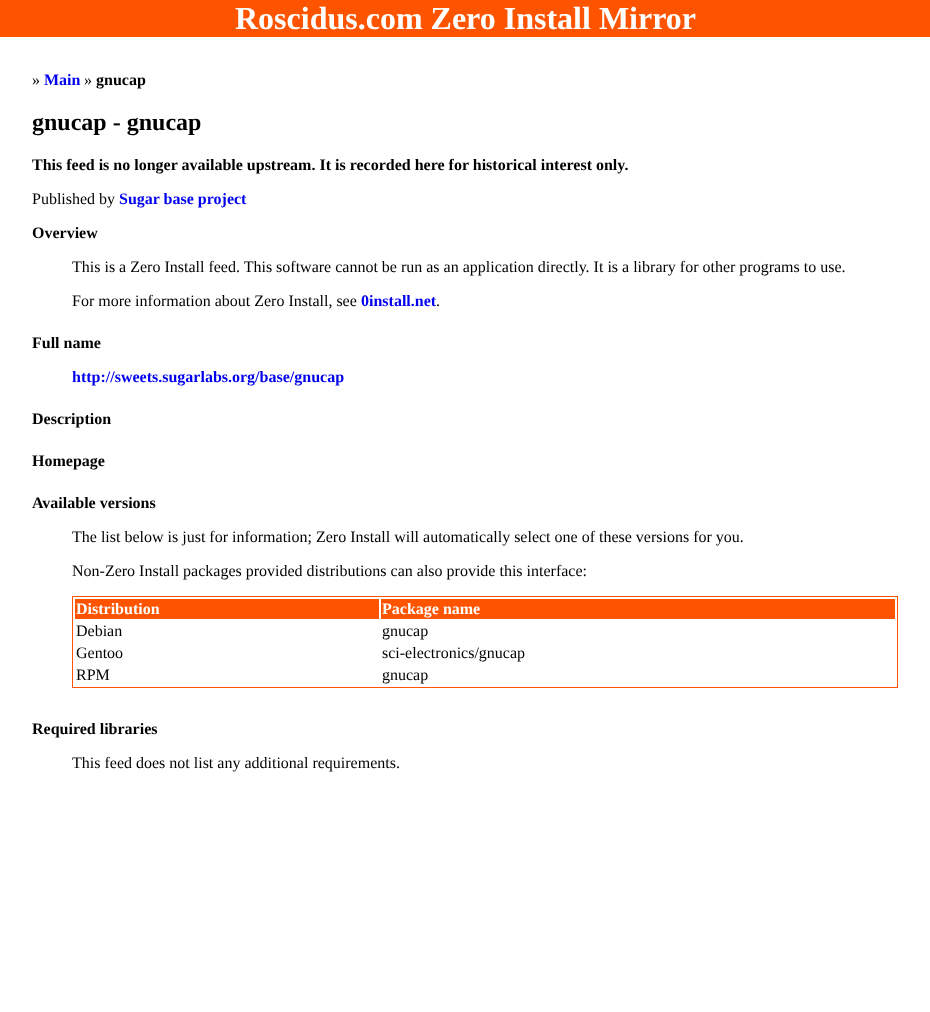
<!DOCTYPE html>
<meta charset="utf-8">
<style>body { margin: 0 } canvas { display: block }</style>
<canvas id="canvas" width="930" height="1012"></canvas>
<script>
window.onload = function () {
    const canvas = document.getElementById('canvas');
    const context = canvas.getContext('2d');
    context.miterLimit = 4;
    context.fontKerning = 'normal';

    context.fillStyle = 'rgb(255, 255, 255)';
    context.fillRect(0, 0, 930, 1012);
    context.fillStyle = 'rgb(254, 84, 0)';
    context.fillRect(0, 0, 930, 37);
    context.strokeStyle = 'rgb(254, 84, 0)';
    context.strokeRect(72.5, 596.5, 825, 91);
    context.fillRect(75, 599, 304, 20);
    context.fillRect(381, 599, 514, 20);
    context.font = 'bold 32px Liberation Serif';
    context.fillStyle = 'rgb(255, 255, 255)';
    context.fillText('Roscidus.com Zero Install Mirror', 235, 29);
    context.font = '16px Liberation Serif';
    context.fillStyle = 'rgb(0, 0, 0)';
    context.fillText('»', 32, 85);
    context.font = 'bold 16px Liberation Serif';
    context.fillStyle = 'rgb(0, 0, 238)';
    context.fillText('Main', 44, 85);
    context.font = '16px Liberation Serif';
    context.fillStyle = 'rgb(0, 0, 0)';
    context.fillText('»', 84, 85);
    context.font = 'bold 16px Liberation Serif';
    context.fillText('gnucap', 96, 85);
    context.font = 'bold 24px Liberation Serif';
    context.fillText('gnucap - gnucap', 32, 130);
    context.font = 'bold 16px Liberation Serif';
    context.fillText('This feed is no longer available upstream. It is recorded here for historical interest only.', 32, 170);
    context.font = '16px Liberation Serif';
    context.fillText('Published by', 32, 204);
    context.font = 'bold 16px Liberation Serif';
    context.fillStyle = 'rgb(0, 0, 238)';
    context.fillText('Sugar base project', 119, 204);
    context.fillStyle = 'rgb(0, 0, 0)';
    context.fillText('Overview', 32, 238);
    context.font = '16px Liberation Serif';
    context.fillText('This is a Zero Install feed. This software cannot be run as an application directly. It is a library for other programs to use.', 72, 272);
    context.fillText('For more information about Zero Install, see', 72, 306);
    context.font = 'bold 16px Liberation Serif';
    context.fillStyle = 'rgb(0, 0, 238)';
    context.fillText('0install.net', 361, 306);
    context.font = '16px Liberation Serif';
    context.fillStyle = 'rgb(0, 0, 0)';
    context.fillText('.', 436, 306);
    context.font = 'bold 16px Liberation Serif';
    context.fillText('Full name', 32, 348);
    context.fillStyle = 'rgb(0, 0, 238)';
    context.fillText('http://sweets.sugarlabs.org/base/gnucap', 72, 382);
    context.fillStyle = 'rgb(0, 0, 0)';
    context.fillText('Description', 32, 424);
    context.fillText('Homepage', 32, 466);
    context.fillText('Available versions', 32, 508);
    context.font = '16px Liberation Serif';
    context.fillText('The list below is just for information; Zero Install will automatically select one of these versions for you.', 72, 542);
    context.fillText('Non-Zero Install packages provided distributions can also provide this interface:', 72, 576);
    context.font = 'bold 16px Liberation Serif';
    context.fillStyle = 'rgb(255, 255, 255)';
    context.fillText('Distribution', 76, 614);
    context.fillText('Package name', 382, 614);
    context.font = '16px Liberation Serif';
    context.fillStyle = 'rgb(0, 0, 0)';
    context.fillText('Debian', 76, 636);
    context.fillText('gnucap', 382, 636);
    context.fillText('Gentoo', 76, 658);
    context.fillText('sci-electronics/gnucap', 382, 658);
    context.fillText('RPM', 76, 680);
    context.fillText('gnucap', 382, 680);
    context.font = 'bold 16px Liberation Serif';
    context.fillText('Required libraries', 32, 734);
    context.font = '16px Liberation Serif';
    context.fillText('This feed does not list any additional requirements.', 72, 768);
};
</script>
